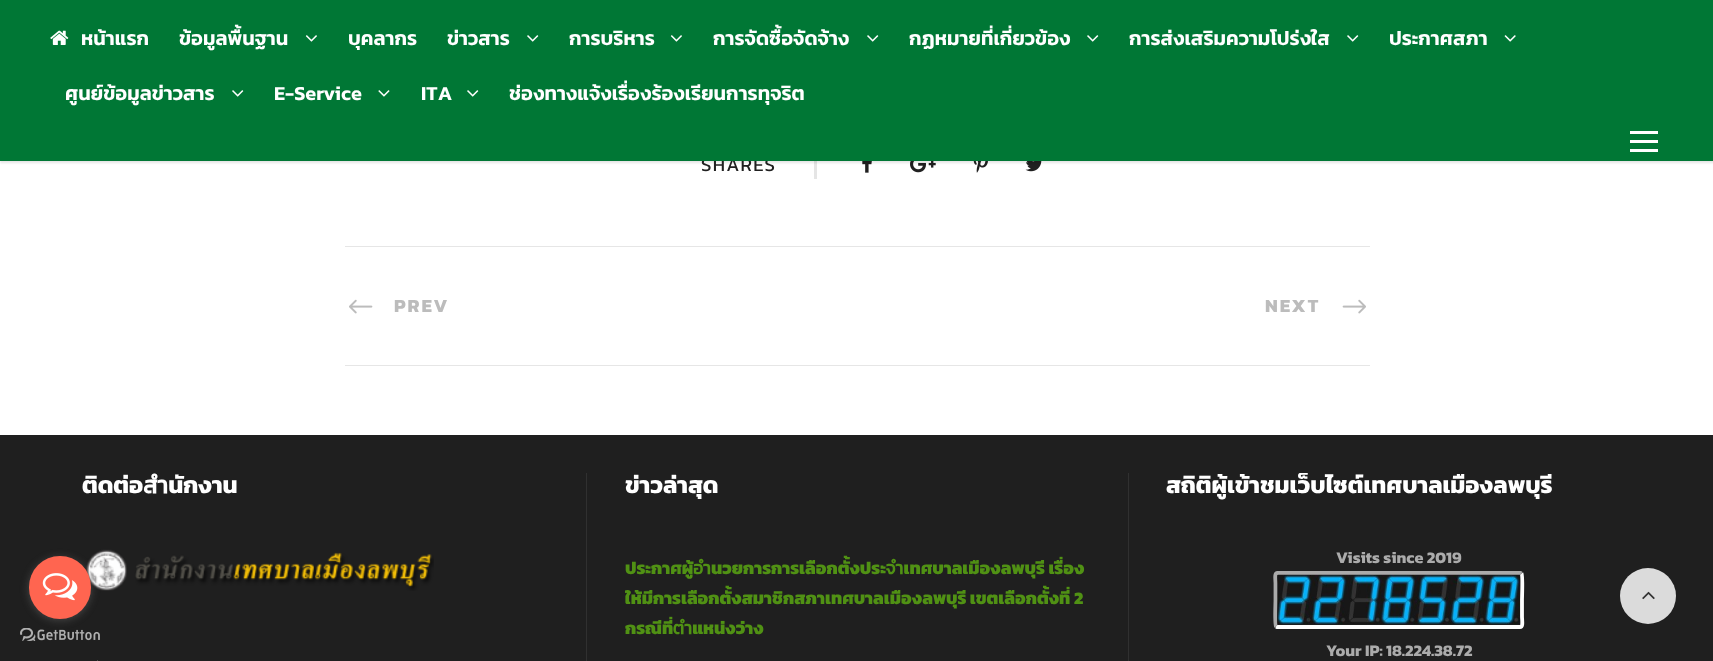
<!DOCTYPE html>
<meta charset="utf-8">
<style>body { margin: 0 } canvas { display: block }</style>
<canvas id="canvas" width="1713" height="661"></canvas>
<img id="img1" src="images/8.png" hidden>
<img id="img2" src="images/9.png" hidden>
<img id="img3" src="images/10.png" hidden>
<img id="img4" src="images/11.png" hidden>
<img id="img5" src="images/7.png" hidden>
<img id="img6" src="images/14.png" hidden>
<img id="img7" src="images/6.png" hidden>
<img id="img8" src="images/12.png" hidden>
<img id="img9" src="images/13.png" hidden>
<img id="img10" src="images/15.png" hidden>
<img id="img11" src="images/16.png" hidden>
<img id="img12" src="images/3.png" hidden>
<img id="img13" src="images/5.png" hidden>
<img id="img14" src="images/4.png" hidden>
<img id="img15" src="images/2.png" hidden>
<img id="img16" src="images/1.png" hidden>
<script>
window.onload = function () {
    const canvas = document.getElementById('canvas');
    const context = canvas.getContext('2d');
    context.miterLimit = 4;
    context.fontKerning = 'normal';

    context.fillStyle = 'rgb(255, 255, 255)';
    context.fillRect(0, 0, 1713, 661);
    context.fillStyle = 'rgb(229, 229, 229)';
    context.fillRect(814, 161, 3, 18);
    context.drawImage(document.getElementById('img1'), 862, 161, 10, 12);
    context.drawImage(document.getElementById('img2'), 910, 161, 26, 12);
    context.drawImage(document.getElementById('img3'), 973, 161, 15, 12);
    context.drawImage(document.getElementById('img4'), 1025, 161, 17, 11);
    context.fillStyle = 'rgba(0, 0, 0, 0.1)';
    context.filter = 'blur(1px)';
    context.beginPath();
    context.rect(0, 1, 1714, 162);
    context.fill();
    context.filter = 'none';
    context.fillStyle = 'rgb(31, 31, 31)';
    context.fillRect(0, 435, 1713, 226);
    context.drawImage(document.getElementById('img5'), 20, 628, 80, 13);
    context.drawImage(document.getElementById('img6'), 86, 549, 348, 42);
    context.fillStyle = 'rgba(136, 136, 136, 0.4)';
    context.filter = 'blur(4.5px)';
    context.beginPath();
    context.roundRect(29, 558, 62, 62, 31);
    context.fill();
    context.filter = 'none';
    context.fillStyle = 'rgb(255, 101, 80)';
    context.beginPath();
    context.roundRect(29, 556, 62, 63, 31);
    context.fill();
    context.drawImage(document.getElementById('img7'), 42, 573, 36, 28);
    context.fillStyle = 'rgb(230, 230, 230)';
    context.fillRect(345, 246, 1025, 1);
    context.fillRect(345, 365, 1025, 1);
    context.drawImage(document.getElementById('img8'), 349, 299, 24, 15);
    context.drawImage(document.getElementById('img9'), 1342, 299, 24, 15);
    context.fillStyle = 'rgb(76, 76, 76)';
    context.fillRect(97, 660, 1, 1);
    context.fillStyle = 'rgb(48, 48, 48)';
    context.fillRect(586, 473, 1, 188);
    context.fillRect(1128, 473, 1, 188);
    context.beginPath();
    context.moveTo(1521.5, 573.5);
    context.bezierCurveTo(1523, 575.5, 1522, 596.5, 1522, 600);
    context.lineTo(1522, 616.5);
    context.bezierCurveTo(1522, 620.5, 1523.5, 627, 1520, 627);
    context.lineTo(1277, 627);
    context.lineTo(1276, 626.5);
    context.strokeStyle = 'rgb(255, 255, 255)';
    context.lineWidth = 3.8;
    context.stroke();
    context.beginPath();
    context.moveTo(1276, 626.5);
    context.bezierCurveTo(1274.5, 624.5, 1275.5, 603.5, 1275.5, 600);
    context.lineTo(1275.5, 583.5);
    context.bezierCurveTo(1275.5, 579.5, 1274, 573, 1277.5, 573);
    context.lineTo(1520.5, 573);
    context.lineTo(1521.5, 573.5);
    context.strokeStyle = 'rgb(170, 170, 170)';
    context.stroke();
    context.drawImage(document.getElementById('img10'), 1277, 574, 243, 51);
    context.fillStyle = 'rgb(219, 219, 219)';
    context.beginPath();
    context.arc(1648, 596, 28, 0, 2 * Math.PI);
    context.fill();
    context.drawImage(document.getElementById('img11'), 1642, 591, 13, 9);
    context.letterSpacing = '1.25px';
    context.font = '18.75px Kanit';
    context.fillStyle = 'rgb(32, 32, 32)';
    context.fillText('SHARES', 701, 171);
    context.fillStyle = 'rgb(0, 119, 53)';
    context.fillRect(0, 0, 1713, 161);
    context.letterSpacing = '0px';
    context.font = '600 20px Kanit';
    context.fillStyle = 'rgb(255, 255, 255)';
    context.fillText('ช่องทางแจ้งเรื่องร้องเรียนการทุจริต', 509, 100);
    context.drawImage(document.getElementById('img12'), 467, 90, 12, 7);
    context.fillText('ITA', 421, 100);
    context.drawImage(document.getElementById('img13'), 378, 90, 12, 7);
    context.fillText('E-Service', 274, 100);
    context.drawImage(document.getElementById('img12'), 232, 90, 12, 7);
    context.fillText('ศูนย์ข้อมูลข่าวสาร', 65, 100);
    context.drawImage(document.getElementById('img14'), 1504, 35, 12, 7);
    context.fillText('ประกาศสภา', 1389, 45);
    context.drawImage(document.getElementById('img12'), 1347, 35, 12, 7);
    context.fillText('การส่งเสริมความโปร่งใส', 1129, 45);
    context.drawImage(document.getElementById('img12'), 1087, 35, 12, 7);
    context.fillText('กฏหมายที่เกี่ยวข้อง', 909, 45);
    context.drawImage(document.getElementById('img12'), 867, 35, 12, 7);
    context.fillText('การจัดซื้อจัดจ้าง', 713, 45);
    context.drawImage(document.getElementById('img15'), 670, 35, 12, 7);
    context.fillText('การบริหาร', 569, 45);
    context.drawImage(document.getElementById('img12'), 527, 35, 12, 7);
    context.fillText('ข่าวสาร', 447, 45);
    context.fillText('บุคลากร', 348, 45);
    context.drawImage(document.getElementById('img15'), 305, 35, 12, 7);
    context.fillText('ข้อมูลพื้นฐาน', 179, 45);
    context.fillText('หน้าแรก', 81, 45);
    context.drawImage(document.getElementById('img16'), 50, 30, 19, 15);
    context.fillRect(1630, 149, 28, 3);
    context.fillRect(1630, 140, 28, 3);
    context.fillRect(1630, 131, 28, 3);
    context.letterSpacing = '2px';
    context.font = 'bold 18.75px Kanit';
    context.fillStyle = 'rgb(188, 188, 188)';
    context.fillText('PREV', 394, 312);
    context.fillText('NEXT', 1265, 312);
    context.letterSpacing = '0px';
    context.font = 'bold 23.75px Kanit';
    context.fillStyle = 'rgb(255, 255, 255)';
    context.fillText('ติดต่อสำนักงาน', 82, 493);
    context.fillText('ข่าวล่าสุด', 625, 493);
    context.font = '800 17.5px Kanit';
    context.fillStyle = 'rgb(80, 145, 20)';
    context.fillText('ประกาศผู้อำนวยการการเลือกตั้งประจำเทศบาลเมืองลพบุรี เรื่อง', 625, 574);
    context.save();
    context.beginPath();
    context.rect(625, 554, 465, 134);
    context.clip();
    context.fillText('ให้มีการเลือกตั้งสมาชิกสภาเทศบาลเมืองลพบุรี เขตเลือกตั้งที่ 2', 625, 604);
    context.restore();
    context.fillText('กรณีที่ตำแหน่งว่าง', 625, 634);
    context.save();
    context.beginPath();
    context.rect(45, 473, 1625, 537);
    context.clip();
    context.font = 'bold 23.75px Kanit';
    context.fillStyle = 'rgb(255, 255, 255)';
    context.fillText('สถิติผู้เข้าชมเว็บไซต์เทศบาลเมืองลพบุรี', 1166, 493);
    context.restore();
    context.font = 'bold 16.25px Kanit';
    context.fillStyle = 'rgb(171, 171, 171)';
    context.fillText('Visits since 2019', 1336, 563);
    context.fillText('Your IP: 18.224.38.72', 1326, 656);
};
</script>
